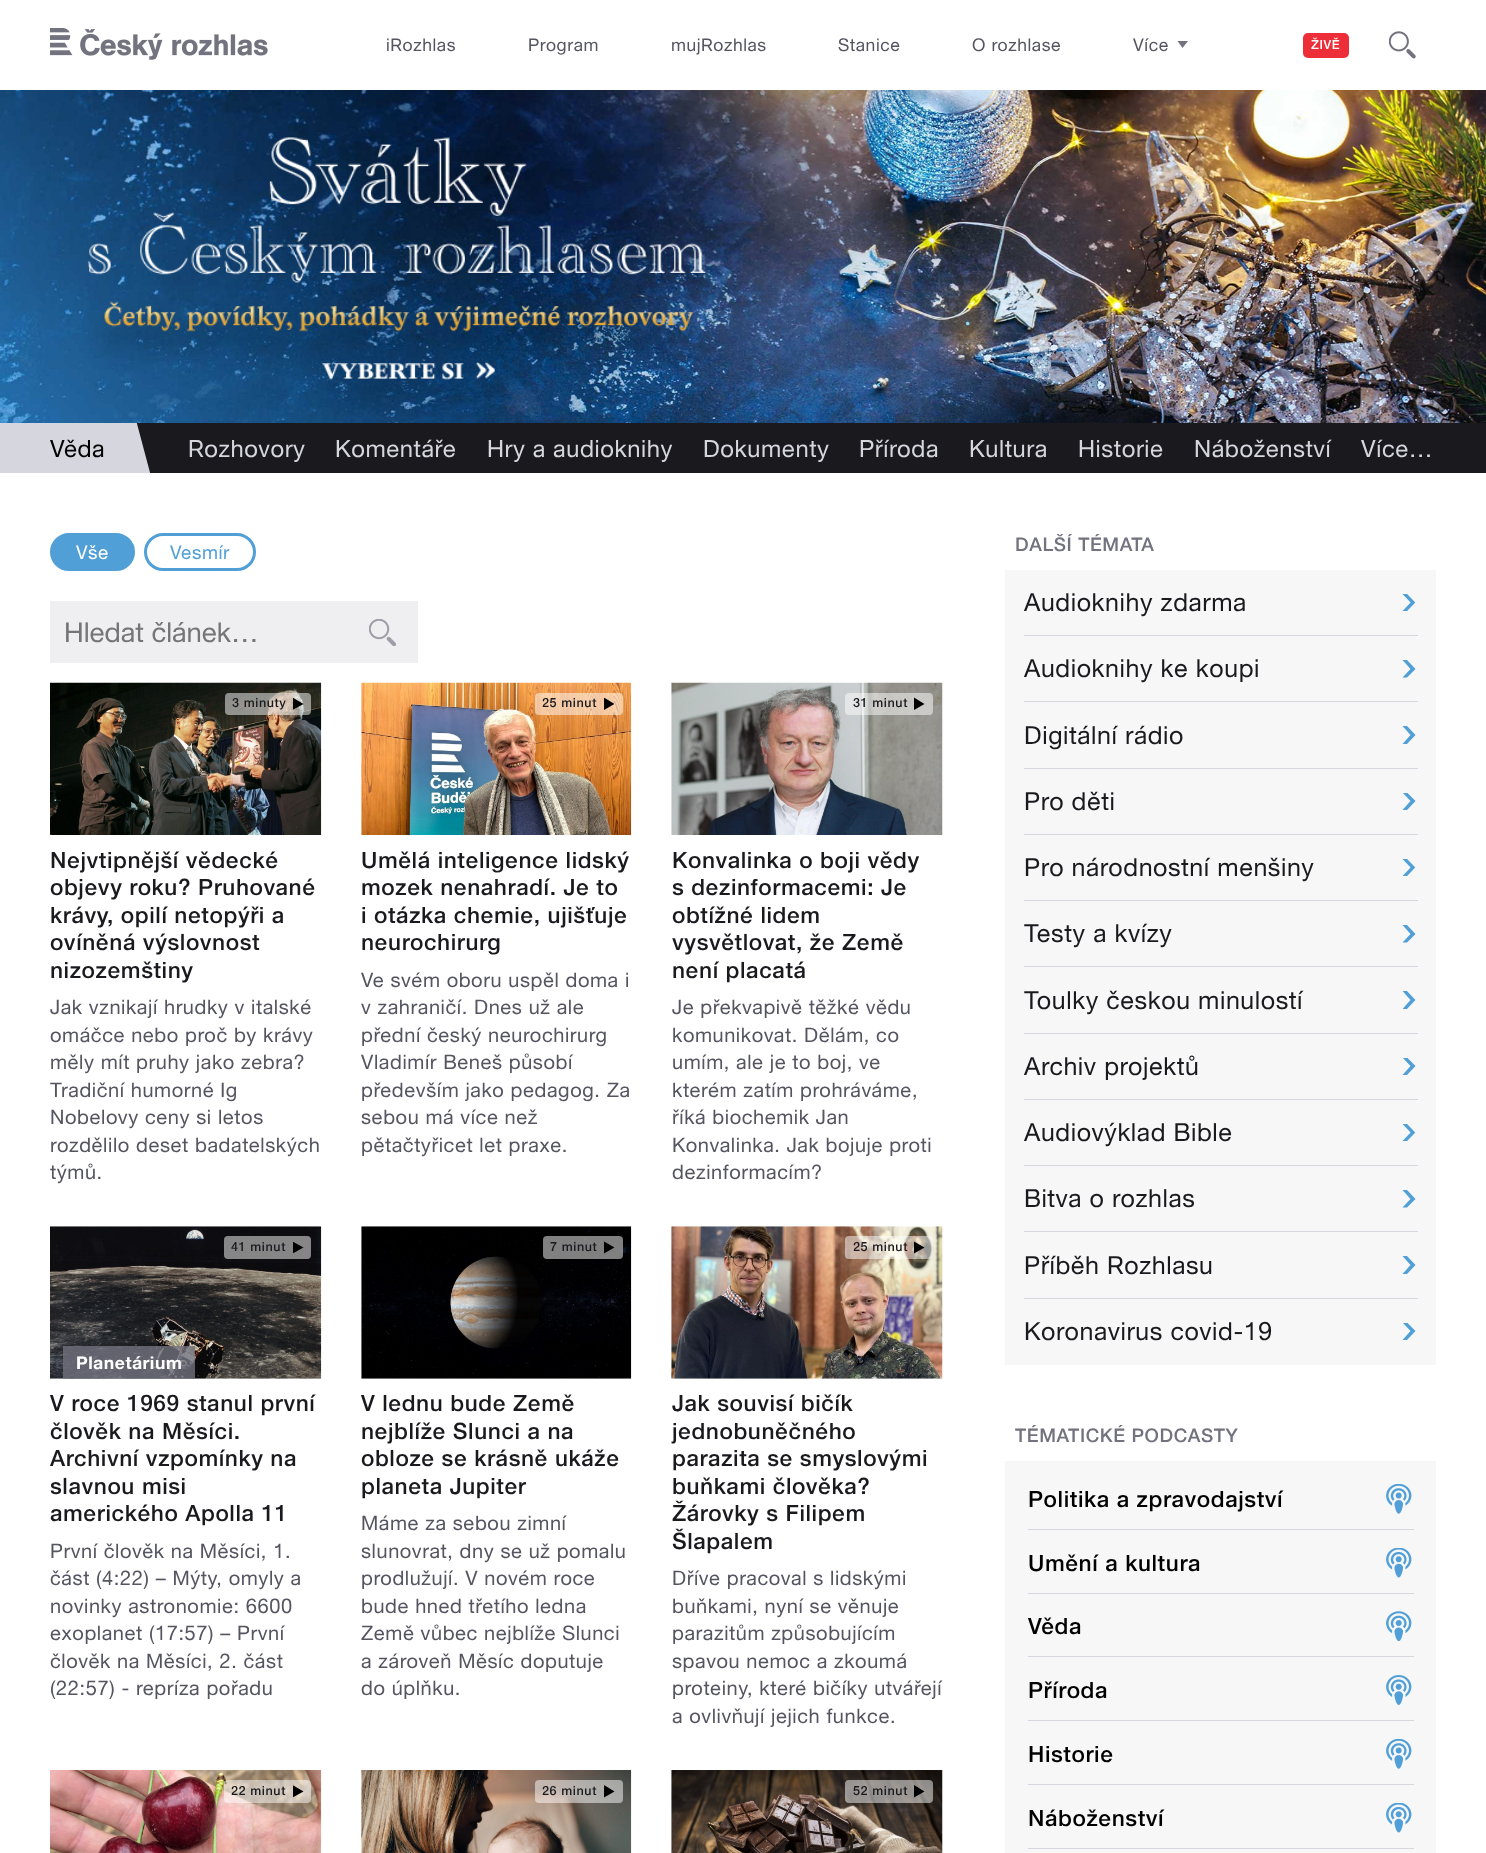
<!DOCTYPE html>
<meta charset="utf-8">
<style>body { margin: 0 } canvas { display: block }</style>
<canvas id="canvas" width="1486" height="1853"></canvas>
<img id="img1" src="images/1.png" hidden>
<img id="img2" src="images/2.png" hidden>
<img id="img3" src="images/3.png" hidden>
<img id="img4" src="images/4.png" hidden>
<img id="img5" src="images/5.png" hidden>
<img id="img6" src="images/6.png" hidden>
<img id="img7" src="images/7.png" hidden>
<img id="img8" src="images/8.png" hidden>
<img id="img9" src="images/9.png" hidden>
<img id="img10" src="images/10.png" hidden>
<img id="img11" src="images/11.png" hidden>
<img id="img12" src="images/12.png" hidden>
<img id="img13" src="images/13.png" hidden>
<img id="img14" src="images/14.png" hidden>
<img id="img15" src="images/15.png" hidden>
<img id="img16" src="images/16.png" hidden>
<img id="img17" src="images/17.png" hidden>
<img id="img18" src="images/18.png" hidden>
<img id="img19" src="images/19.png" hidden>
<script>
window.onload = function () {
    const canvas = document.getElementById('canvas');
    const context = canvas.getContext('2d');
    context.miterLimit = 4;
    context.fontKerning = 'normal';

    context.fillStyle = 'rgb(255, 255, 255)';
    context.fillRect(0, 0, 1486, 1853);
    context.drawImage(document.getElementById('img1'), 50, 28, 218, 32);
    context.fillStyle = 'rgb(115, 115, 127)';
    context.beginPath();
    context.moveTo(1177.5, 41);
    context.lineTo(1188, 41);
    context.lineTo(1182.5, 48);
    context.closePath();
    context.fill();
    context.fillStyle = 'rgb(237, 46, 56)';
    context.beginPath();
    context.roundRect(1303, 33, 46, 25, 5);
    context.fill();
    context.drawImage(document.getElementById('img2'), 1389, 31, 27, 28);
    context.drawImage(document.getElementById('img3'), 0, 90, 1486, 333);
    context.drawImage(document.getElementById('img4'), 87, 137, 620, 279);
    context.fillStyle = 'rgb(214, 214, 222)';
    context.fillRect(0, 423, 151, 50);
    context.save();
    context.beginPath();
    context.rect(0, 423, 155, 50);
    context.clip();
    context.fillStyle = 'rgb(26, 26, 30)';
    context.beginPath();
    context.moveTo(136, 420);
    context.lineTo(196, 403);
    context.lineTo(212, 464);
    context.lineTo(152, 480);
    context.closePath();
    context.fill();
    context.restore();
    context.fillStyle = 'rgb(26, 26, 30)';
    context.fillRect(155, 423, 1331, 50);
    context.fillStyle = 'rgb(81, 159, 215)';
    context.beginPath();
    context.roundRect(51.5, 534.5, 82, 35, 17.5);
    context.fill();
    context.strokeStyle = 'rgb(81, 159, 215)';
    context.lineWidth = 3;
    context.stroke();
    context.beginPath();
    context.roundRect(145.5, 534.5, 109, 35, 17.5);
    context.stroke();
    context.fillStyle = 'rgb(239, 239, 242)';
    context.fillRect(50, 601, 368, 62);
    context.drawImage(document.getElementById('img5'), 369, 619, 27, 27);
    context.drawImage(document.getElementById('img6'), 50, 682, 272, 153);
    context.fillStyle = 'rgba(255, 255, 255, 0.5)';
    context.beginPath();
    context.roundRect(225, 693, 86, 22, 4);
    context.fill();
    context.save();
    context.beginPath();
    context.rect(293, 698, 11, 12);
    context.clip();
    context.fillStyle = 'rgb(0, 0, 0)';
    context.beginPath();
    context.moveTo(292.5, 697.5);
    context.lineTo(303.5, 704);
    context.lineTo(292.5, 710);
    context.closePath();
    context.fill('evenodd');
    context.restore();
    context.drawImage(document.getElementById('img7'), 361, 682, 271, 153);
    context.beginPath();
    context.roundRect(535, 693, 88, 22, 4);
    context.fill();
    context.save();
    context.beginPath();
    context.rect(604, 698, 10, 12);
    context.clip();
    context.fillStyle = 'rgb(0, 0, 0)';
    context.beginPath();
    context.moveTo(604, 697.5);
    context.lineTo(614.5, 704);
    context.lineTo(604, 710);
    context.closePath();
    context.fill('evenodd');
    context.restore();
    context.drawImage(document.getElementById('img8'), 671, 682, 272, 153);
    context.beginPath();
    context.roundRect(845, 693, 88, 22, 4);
    context.fill();
    context.fillStyle = 'rgb(0, 0, 0)';
    context.beginPath();
    context.moveTo(914, 697.5);
    context.lineTo(924.5, 704);
    context.lineTo(914, 710);
    context.closePath();
    context.fill('evenodd');
    context.drawImage(document.getElementById('img9'), 50, 1226, 272, 153);
    context.fillStyle = 'rgba(255, 255, 255, 0.5)';
    context.beginPath();
    context.roundRect(224, 1236, 87, 23, 4);
    context.fill();
    context.save();
    context.beginPath();
    context.rect(293, 1241, 11, 13);
    context.clip();
    context.fillStyle = 'rgb(0, 0, 0)';
    context.beginPath();
    context.moveTo(292.5, 1241.5);
    context.lineTo(303.5, 1247.5);
    context.lineTo(292.5, 1253.5);
    context.closePath();
    context.fill('evenodd');
    context.restore();
    context.fillStyle = 'rgba(114, 114, 126, 0.8)';
    context.fillRect(63, 1346, 132, 33);
    context.drawImage(document.getElementById('img10'), 361, 1226, 271, 153);
    context.fillStyle = 'rgba(255, 255, 255, 0.5)';
    context.beginPath();
    context.roundRect(543, 1236, 80, 23, 4);
    context.fill();
    context.fillStyle = 'rgb(0, 0, 0)';
    context.beginPath();
    context.moveTo(604, 1241.5);
    context.lineTo(614.5, 1247.5);
    context.lineTo(604, 1253.5);
    context.closePath();
    context.fill('evenodd');
    context.drawImage(document.getElementById('img11'), 671, 1226, 272, 153);
    context.fillStyle = 'rgba(255, 255, 255, 0.5)';
    context.beginPath();
    context.roundRect(845, 1236, 88, 23, 4);
    context.fill();
    context.fillStyle = 'rgb(0, 0, 0)';
    context.beginPath();
    context.moveTo(914, 1241.5);
    context.lineTo(924.5, 1247.5);
    context.lineTo(914, 1253.5);
    context.closePath();
    context.fill('evenodd');
    context.drawImage(document.getElementById('img12'), 50, 1770, 272, 83);
    context.fillStyle = 'rgba(255, 255, 255, 0.5)';
    context.beginPath();
    context.roundRect(224, 1780, 87, 23, 4);
    context.fill();
    context.save();
    context.beginPath();
    context.rect(293, 1785, 11, 13);
    context.clip();
    context.fillStyle = 'rgb(0, 0, 0)';
    context.beginPath();
    context.moveTo(292.5, 1785);
    context.lineTo(303.5, 1791.5);
    context.lineTo(292.5, 1797.5);
    context.closePath();
    context.fill('evenodd');
    context.restore();
    context.drawImage(document.getElementById('img13'), 361, 1770, 271, 83);
    context.beginPath();
    context.roundRect(535, 1780, 88, 23, 4);
    context.fill();
    context.fillStyle = 'rgb(0, 0, 0)';
    context.beginPath();
    context.moveTo(604, 1785);
    context.lineTo(614.5, 1791.5);
    context.lineTo(604, 1797.5);
    context.closePath();
    context.fill('evenodd');
    context.drawImage(document.getElementById('img14'), 671, 1770, 272, 83);
    context.fillStyle = 'rgba(255, 255, 255, 0.5)';
    context.beginPath();
    context.roundRect(845, 1780, 88, 23, 4);
    context.fill();
    context.fillStyle = 'rgb(0, 0, 0)';
    context.beginPath();
    context.moveTo(914, 1785);
    context.lineTo(924.5, 1791.5);
    context.lineTo(914, 1797.5);
    context.closePath();
    context.fill('evenodd');
    context.fillStyle = 'rgb(247, 247, 248)';
    context.fillRect(1005, 570, 431, 795);
    context.drawImage(document.getElementById('img15'), 1402, 594, 14, 17);
    context.fillStyle = 'rgb(214, 214, 222)';
    context.fillRect(1024, 635, 394, 1);
    context.fillStyle = 'rgb(81, 159, 215)';
    context.beginPath();
    context.moveTo(1407, 677.5);
    context.lineTo(1402.5, 677.5);
    context.lineTo(1410.5, 669);
    context.lineTo(1402.5, 660);
    context.lineTo(1407, 660);
    context.lineTo(1415.5, 669);
    context.closePath();
    context.fill();
    context.fillStyle = 'rgb(214, 214, 222)';
    context.fillRect(1024, 701, 394, 1);
    context.fillStyle = 'rgb(81, 159, 215)';
    context.beginPath();
    context.moveTo(1407, 744);
    context.lineTo(1402.5, 744);
    context.lineTo(1410.5, 735);
    context.lineTo(1402.5, 726);
    context.lineTo(1407, 726);
    context.lineTo(1415.5, 735);
    context.closePath();
    context.fill();
    context.fillStyle = 'rgb(214, 214, 222)';
    context.fillRect(1024, 768, 394, 1);
    context.save();
    context.beginPath();
    context.rect(1400, 793, 18, 17);
    context.clip();
    context.fillStyle = 'rgb(81, 159, 215)';
    context.beginPath();
    context.moveTo(1407, 810);
    context.lineTo(1402.5, 810);
    context.lineTo(1410.5, 801);
    context.lineTo(1402.5, 792.5);
    context.lineTo(1407, 792.5);
    context.lineTo(1415.5, 801);
    context.closePath();
    context.fill();
    context.restore();
    context.fillRect(1024, 834, 394, 1);
    context.drawImage(document.getElementById('img15'), 1402, 859, 14, 17);
    context.fillRect(1024, 900, 394, 1);
    context.fillStyle = 'rgb(81, 159, 215)';
    context.beginPath();
    context.moveTo(1407, 942.5);
    context.lineTo(1402.5, 942.5);
    context.lineTo(1410.5, 934);
    context.lineTo(1402.5, 925);
    context.lineTo(1407, 925);
    context.lineTo(1415.5, 934);
    context.closePath();
    context.fill();
    context.fillStyle = 'rgb(214, 214, 222)';
    context.fillRect(1024, 966, 394, 1);
    context.fillStyle = 'rgb(81, 159, 215)';
    context.beginPath();
    context.moveTo(1407, 1009);
    context.lineTo(1402.5, 1009);
    context.lineTo(1410.5, 1000);
    context.lineTo(1402.5, 991);
    context.lineTo(1407, 991);
    context.lineTo(1415.5, 1000);
    context.closePath();
    context.fill();
    context.fillStyle = 'rgb(214, 214, 222)';
    context.fillRect(1024, 1033, 394, 1);
    context.save();
    context.beginPath();
    context.rect(1400, 1058, 18, 17);
    context.clip();
    context.fillStyle = 'rgb(81, 159, 215)';
    context.beginPath();
    context.moveTo(1407, 1075);
    context.lineTo(1402.5, 1075);
    context.lineTo(1410.5, 1066);
    context.lineTo(1402.5, 1057.5);
    context.lineTo(1407, 1057.5);
    context.lineTo(1415.5, 1066);
    context.closePath();
    context.fill();
    context.restore();
    context.fillRect(1024, 1099, 394, 1);
    context.drawImage(document.getElementById('img15'), 1402, 1124, 14, 17);
    context.fillRect(1024, 1165, 394, 1);
    context.fillStyle = 'rgb(81, 159, 215)';
    context.beginPath();
    context.moveTo(1407, 1207.5);
    context.lineTo(1402.5, 1207.5);
    context.lineTo(1410.5, 1199);
    context.lineTo(1402.5, 1190);
    context.lineTo(1407, 1190);
    context.lineTo(1415.5, 1199);
    context.closePath();
    context.fill();
    context.fillStyle = 'rgb(214, 214, 222)';
    context.fillRect(1024, 1231, 394, 1);
    context.fillStyle = 'rgb(81, 159, 215)';
    context.beginPath();
    context.moveTo(1407, 1274);
    context.lineTo(1402.5, 1274);
    context.lineTo(1410.5, 1265);
    context.lineTo(1402.5, 1256);
    context.lineTo(1407, 1256);
    context.lineTo(1415.5, 1265);
    context.closePath();
    context.fill();
    context.fillStyle = 'rgb(214, 214, 222)';
    context.fillRect(1024, 1298, 394, 1);
    context.save();
    context.beginPath();
    context.rect(1400, 1323, 18, 17);
    context.clip();
    context.fillStyle = 'rgb(81, 159, 215)';
    context.beginPath();
    context.moveTo(1407, 1340);
    context.lineTo(1402.5, 1340);
    context.lineTo(1410.5, 1331);
    context.lineTo(1402.5, 1322.5);
    context.lineTo(1407, 1322.5);
    context.lineTo(1415.5, 1331);
    context.closePath();
    context.fill();
    context.restore();
    context.fillStyle = 'rgb(247, 247, 248)';
    context.fillRect(1005, 1461, 431, 392);
    context.drawImage(document.getElementById('img16'), 1386, 1484, 26, 30);
    context.fillStyle = 'rgb(214, 214, 222)';
    context.fillRect(1028, 1529, 386, 1);
    context.drawImage(document.getElementById('img17'), 1386, 1548, 26, 30);
    context.fillRect(1028, 1593, 386, 1);
    context.drawImage(document.getElementById('img18'), 1386, 1611, 26, 30);
    context.fillRect(1028, 1656, 386, 1);
    context.drawImage(document.getElementById('img19'), 1386, 1675, 26, 30);
    context.fillRect(1028, 1720, 386, 1);
    context.drawImage(document.getElementById('img16'), 1386, 1739, 26, 30);
    context.fillRect(1028, 1784, 386, 1);
    context.drawImage(document.getElementById('img17'), 1386, 1803, 26, 30);
    context.fillRect(1028, 1848, 386, 1);
    context.letterSpacing = '0.6px';
    context.font = '17.5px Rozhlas';
    context.fillStyle = 'rgb(85, 85, 97)';
    context.fillText('iRozhlas', 386, 51);
    context.fillText('Program', 528, 51);
    context.fillText('mujRozhlas', 671, 51);
    context.fillText('Stanice', 838, 51);
    context.fillText('O rozhlase', 972, 51);
    context.fillText('Více', 1133, 51);
    context.font = '500 12.5px Rozhlas';
    context.fillStyle = 'rgb(255, 255, 255)';
    context.fillText('ŽIVĚ', 1311, 49);
    context.font = '23.75px Rozhlas';
    context.fillStyle = 'rgb(0, 0, 0)';
    context.fillText('Věda', 50, 457);
    context.fillStyle = 'rgb(214, 214, 222)';
    context.fillText('Rozhovory', 188, 457);
    context.fillText('Komentáře', 335, 457);
    context.fillText('Hry a audioknihy', 487, 457);
    context.fillText('Dokumenty', 703, 457);
    context.fillText('Příroda', 859, 457);
    context.fillText('Kultura', 969, 457);
    context.fillText('Historie', 1078, 457);
    context.fillText('Náboženství', 1194, 457);
    context.fillText('Více…', 1361, 457);
    context.font = '18.75px Rozhlas';
    context.fillStyle = 'rgb(255, 255, 255)';
    context.fillText('Vše', 76, 559);
    context.fillStyle = 'rgb(81, 159, 215)';
    context.fillText('Vesmír', 170, 559);
    context.letterSpacing = '0px';
    context.font = '27.5px Rozhlas';
    context.fillStyle = 'rgb(117, 117, 117)';
    context.fillText('Hledat článek...', 64, 642);
    context.letterSpacing = '0.6px';
    context.font = '500 12.5px Rozhlas';
    context.fillStyle = 'rgb(26, 26, 30)';
    context.fillText('3 minuty', 232, 707);
    context.font = '500 22.5px Rozhlas';
    context.fillText('Nejvtipnější vědecké', 50, 868);
    context.fillText('objevy roku? Pruhované', 50, 895);
    context.fillText('krávy, opilí netopýři a', 50, 923);
    context.fillText('ovíněná výslovnost', 50, 950);
    context.fillText('nizozemštiny', 50, 978);
    context.font = '20px Rozhlas';
    context.fillStyle = 'rgb(85, 85, 97)';
    context.fillText('Jak vznikají hrudky v italské', 50, 1014);
    context.fillText('omáčce nebo proč by krávy', 50, 1042);
    context.fillText('měly mít pruhy jako zebra?', 50, 1069);
    context.fillText('Tradiční humorné Ig', 50, 1097);
    context.fillText('Nobelovy ceny si letos', 50, 1124);
    context.fillText('rozdělilo deset badatelských', 50, 1152);
    context.fillText('týmů.', 50, 1179);
    context.font = '500 12.5px Rozhlas';
    context.fillStyle = 'rgb(26, 26, 30)';
    context.fillText('25 minut', 542, 707);
    context.font = '500 22.5px Rozhlas';
    context.fillText('Umělá inteligence lidský', 361, 868);
    context.fillText('mozek nenahradí. Je to', 361, 895);
    context.fillText('i otázka chemie, ujišťuje', 361, 923);
    context.fillText('neurochirurg', 361, 950);
    context.font = '20px Rozhlas';
    context.fillStyle = 'rgb(85, 85, 97)';
    context.fillText('Ve svém oboru uspěl doma i', 361, 987);
    context.fillText('v zahraničí. Dnes už ale', 361, 1014);
    context.fillText('přední český neurochirurg', 361, 1042);
    context.fillText('Vladimír Beneš působí', 361, 1069);
    context.fillText('především jako pedagog. Za', 361, 1097);
    context.fillText('sebou má více než', 361, 1124);
    context.fillText('pětačtyřicet let praxe.', 361, 1152);
    context.font = '500 12.5px Rozhlas';
    context.fillStyle = 'rgb(26, 26, 30)';
    context.fillText('31 minut', 853, 707);
    context.font = '500 22.5px Rozhlas';
    context.fillText('Konvalinka o boji vědy', 672, 868);
    context.fillText('s dezinformacemi: Je', 672, 895);
    context.fillText('obtížné lidem', 672, 923);
    context.fillText('vysvětlovat, že Země', 672, 950);
    context.fillText('není placatá', 672, 978);
    context.font = '20px Rozhlas';
    context.fillStyle = 'rgb(85, 85, 97)';
    context.fillText('Je překvapivě těžké vědu', 672, 1014);
    context.fillText('komunikovat. Dělám, co', 672, 1042);
    context.fillText('umím, ale je to boj, ve', 672, 1069);
    context.fillText('kterém zatím prohráváme,', 672, 1097);
    context.fillText('říká biochemik Jan', 672, 1124);
    context.fillText('Konvalinka. Jak bojuje proti', 672, 1152);
    context.fillText('dezinformacím?', 672, 1179);
    context.font = '500 12.5px Rozhlas';
    context.fillStyle = 'rgb(26, 26, 30)';
    context.fillText('41 minut', 231, 1251);
    context.font = 'bold 17.5px Rozhlas';
    context.fillStyle = 'rgb(255, 255, 255)';
    context.fillText('Planetárium', 76, 1369);
    context.font = '500 22.5px Rozhlas';
    context.fillStyle = 'rgb(26, 26, 30)';
    context.fillText('V roce 1969 stanul první', 50, 1411);
    context.fillText('člověk na Měsíci.', 50, 1439);
    context.fillText('Archivní vzpomínky na', 50, 1466);
    context.fillText('slavnou misi', 50, 1494);
    context.fillText('amerického Apolla 11', 50, 1521);
    context.font = '20px Rozhlas';
    context.fillStyle = 'rgb(85, 85, 97)';
    context.fillText('První člověk na Měsíci, 1.', 50, 1558);
    context.fillText('část (4:22) – Mýty, omyly a', 50, 1585);
    context.fillText('novinky astronomie: 6600', 50, 1613);
    context.fillText('exoplanet (17:57) – První', 50, 1640);
    context.fillText('člověk na Měsíci, 2. část', 50, 1668);
    context.fillText('(22:57) - repríza pořadu', 50, 1695);
    context.font = '500 12.5px Rozhlas';
    context.fillStyle = 'rgb(26, 26, 30)';
    context.fillText('7 minut', 550, 1251);
    context.font = '500 22.5px Rozhlas';
    context.fillText('V lednu bude Země', 361, 1411);
    context.fillText('nejblíže Slunci a na', 361, 1439);
    context.fillText('obloze se krásně ukáže', 361, 1466);
    context.fillText('planeta Jupiter', 361, 1494);
    context.font = '20px Rozhlas';
    context.fillStyle = 'rgb(85, 85, 97)';
    context.fillText('Máme za sebou zimní', 361, 1530);
    context.fillText('slunovrat, dny se už pomalu', 361, 1558);
    context.fillText('prodlužují. V novém roce', 361, 1585);
    context.fillText('bude hned třetího ledna', 361, 1613);
    context.fillText('Země vůbec nejblíže Slunci', 361, 1640);
    context.fillText('a zároveň Měsíc doputuje', 361, 1668);
    context.fillText('do úplňku.', 361, 1695);
    context.font = '500 12.5px Rozhlas';
    context.fillStyle = 'rgb(26, 26, 30)';
    context.fillText('25 minut', 853, 1251);
    context.font = '500 22.5px Rozhlas';
    context.fillText('Jak souvisí bičík', 672, 1411);
    context.fillText('jednobuněčného', 672, 1439);
    context.fillText('parazita se smyslovými', 672, 1466);
    context.fillText('buňkami člověka?', 672, 1494);
    context.fillText('Žárovky s Filipem', 672, 1521);
    context.fillText('Šlapalem', 672, 1549);
    context.font = '20px Rozhlas';
    context.fillStyle = 'rgb(85, 85, 97)';
    context.fillText('Dříve pracoval s lidskými', 672, 1585);
    context.fillText('buňkami, nyní se věnuje', 672, 1613);
    context.fillText('parazitům způsobujícím', 672, 1640);
    context.fillText('spavou nemoc a zkoumá', 672, 1668);
    context.fillText('proteiny, které bičíky utvářejí', 672, 1695);
    context.fillText('a ovlivňují jejich funkce.', 672, 1723);
    context.font = '500 12.5px Rozhlas';
    context.fillStyle = 'rgb(26, 26, 30)';
    context.fillText('22 minut', 231, 1795);
    context.fillText('26 minut', 542, 1795);
    context.fillText('52 minut', 853, 1795);
    context.font = '500 18.75px Rozhlas';
    context.fillStyle = 'rgb(115, 115, 127)';
    context.fillText('DALŠÍ TÉMATA', 1015, 551);
    context.font = '25px Rozhlas';
    context.fillStyle = 'rgb(26, 26, 30)';
    context.fillText('Audioknihy zdarma', 1024, 611);
    context.fillText('Audioknihy ke koupi', 1024, 677);
    context.fillText('Digitální rádio', 1024, 744);
    context.fillText('Pro děti', 1024, 810);
    context.fillText('Pro národnostní menšiny', 1024, 876);
    context.fillText('Testy a kvízy', 1024, 942);
    context.fillText('Toulky českou minulostí', 1024, 1009);
    context.fillText('Archiv projektů', 1024, 1075);
    context.fillText('Audiovýklad Bible', 1024, 1141);
    context.fillText('Bitva o rozhlas', 1024, 1207);
    context.fillText('Příběh Rozhlasu', 1024, 1274);
    context.fillText('Koronavirus covid-19', 1024, 1340);
    context.font = '500 18.75px Rozhlas';
    context.fillStyle = 'rgb(115, 115, 127)';
    context.fillText('TÉMATICKÉ PODCASTY', 1015, 1442);
    context.font = '500 22.5px Rozhlas';
    context.fillStyle = 'rgb(0, 0, 0)';
    context.fillText('Politika a zpravodajství', 1028, 1507);
    context.fillText('Umění a kultura', 1028, 1571);
    context.fillText('Věda', 1028, 1634);
    context.fillText('Příroda', 1028, 1698);
    context.fillText('Historie', 1028, 1762);
    context.fillText('Náboženství', 1028, 1826);
};
</script>
